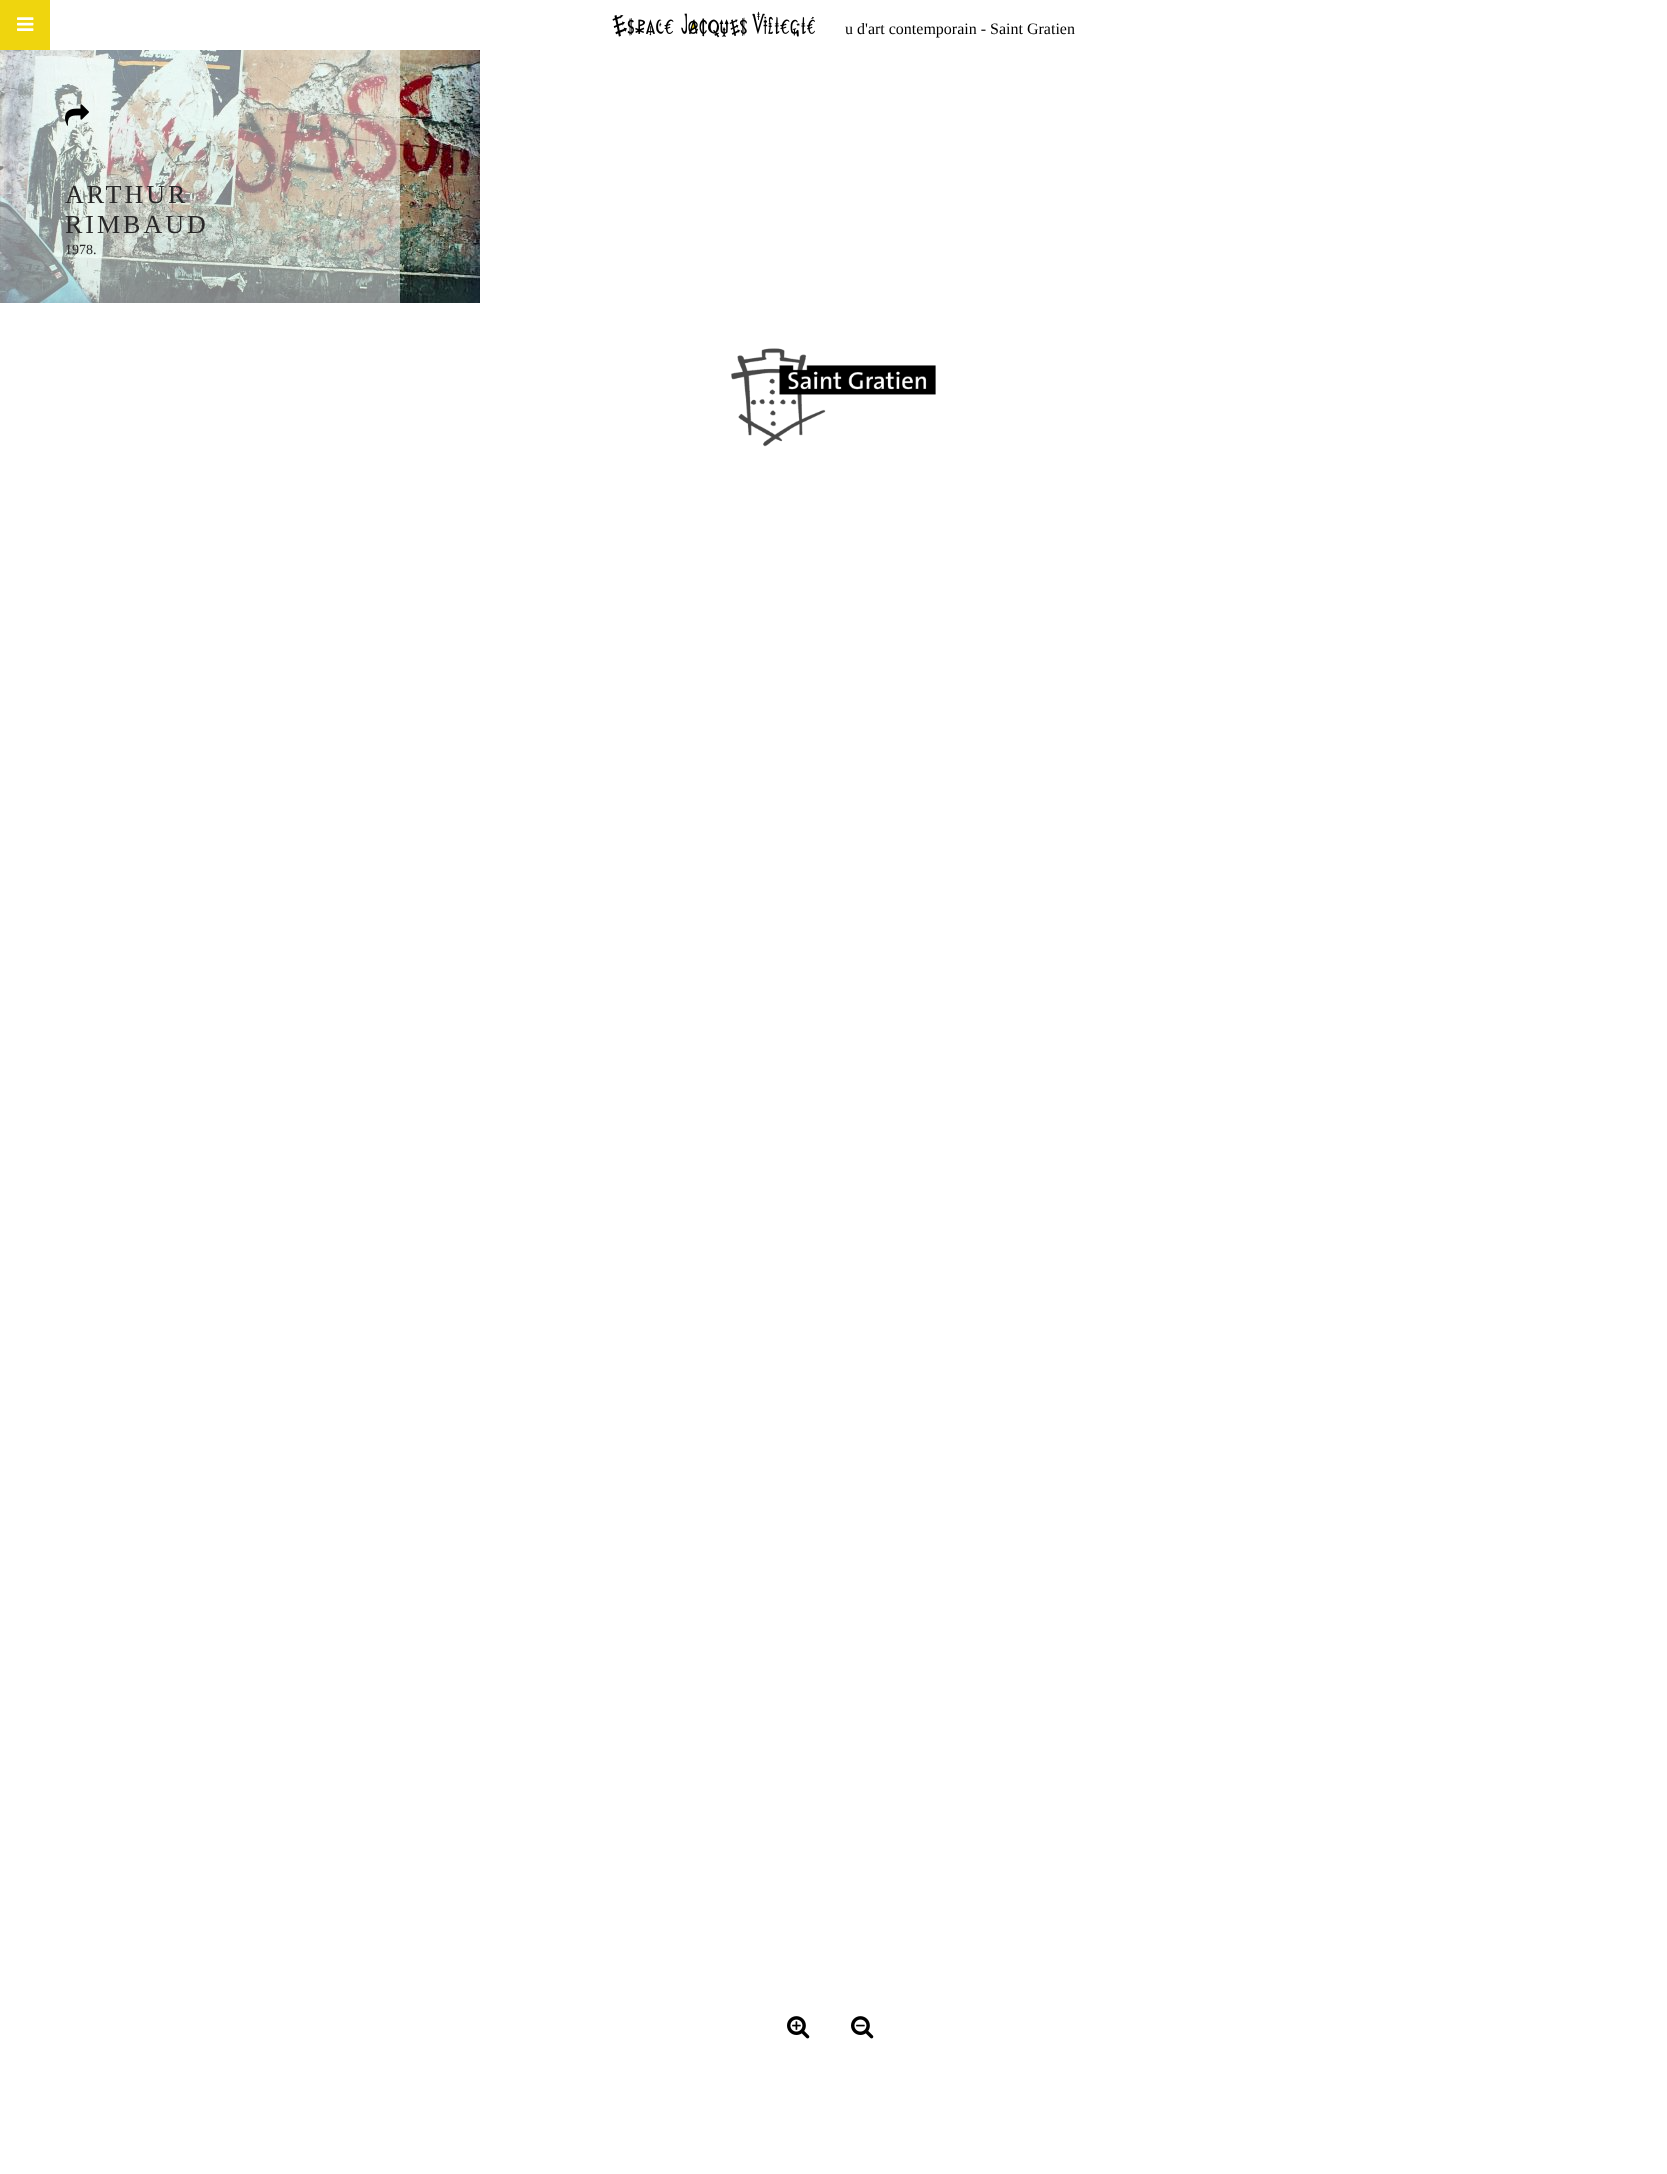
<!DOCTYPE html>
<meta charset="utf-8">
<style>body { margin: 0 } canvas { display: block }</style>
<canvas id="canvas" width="1667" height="2174"></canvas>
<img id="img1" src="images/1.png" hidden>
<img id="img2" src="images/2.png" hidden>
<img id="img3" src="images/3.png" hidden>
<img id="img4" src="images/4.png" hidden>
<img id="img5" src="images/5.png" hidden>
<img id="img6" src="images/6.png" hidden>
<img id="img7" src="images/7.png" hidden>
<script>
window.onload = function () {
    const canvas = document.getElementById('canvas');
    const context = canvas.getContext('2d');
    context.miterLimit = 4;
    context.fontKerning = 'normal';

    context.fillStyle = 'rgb(255, 255, 255)';
    context.fillRect(0, 0, 1667, 2174);
    context.fillStyle = 'rgb(239, 213, 14)';
    context.fillRect(0, 0, 50, 50);
    context.drawImage(document.getElementById('img1'), 17, 17, 17, 14);
    context.drawImage(document.getElementById('img2'), 612, 11, 231, 27);
    context.drawImage(document.getElementById('img3'), 0, 50, 480, 253);
    context.fillStyle = 'rgba(255, 255, 255, 0.5)';
    context.fillRect(0, 50, 400, 253);
    context.drawImage(document.getElementById('img4'), 65, 104, 24, 22);
    context.drawImage(document.getElementById('img5'), 787, 2016, 23, 23);
    context.drawImage(document.getElementById('img6'), 851, 2016, 23, 23);
    context.drawImage(document.getElementById('img7'), 731, 348, 205, 99);
    context.font = '16px Liberation Serif';
    context.fillStyle = 'rgb(0, 0, 0)';
    context.fillText('u d\'art contemporain - Saint Gratien', 845, 34);
    context.letterSpacing = '3px';
    context.font = '26px Liberation Serif';
    context.fillStyle = 'rgb(40, 40, 40)';
    context.fillText('ARTHUR', 65, 203);
    context.fillText('RIMBAUD', 65, 233);
    context.letterSpacing = '0px';
    context.font = '14px Liberation Serif';
    context.fillText('1978.', 65, 254);
};
</script>
